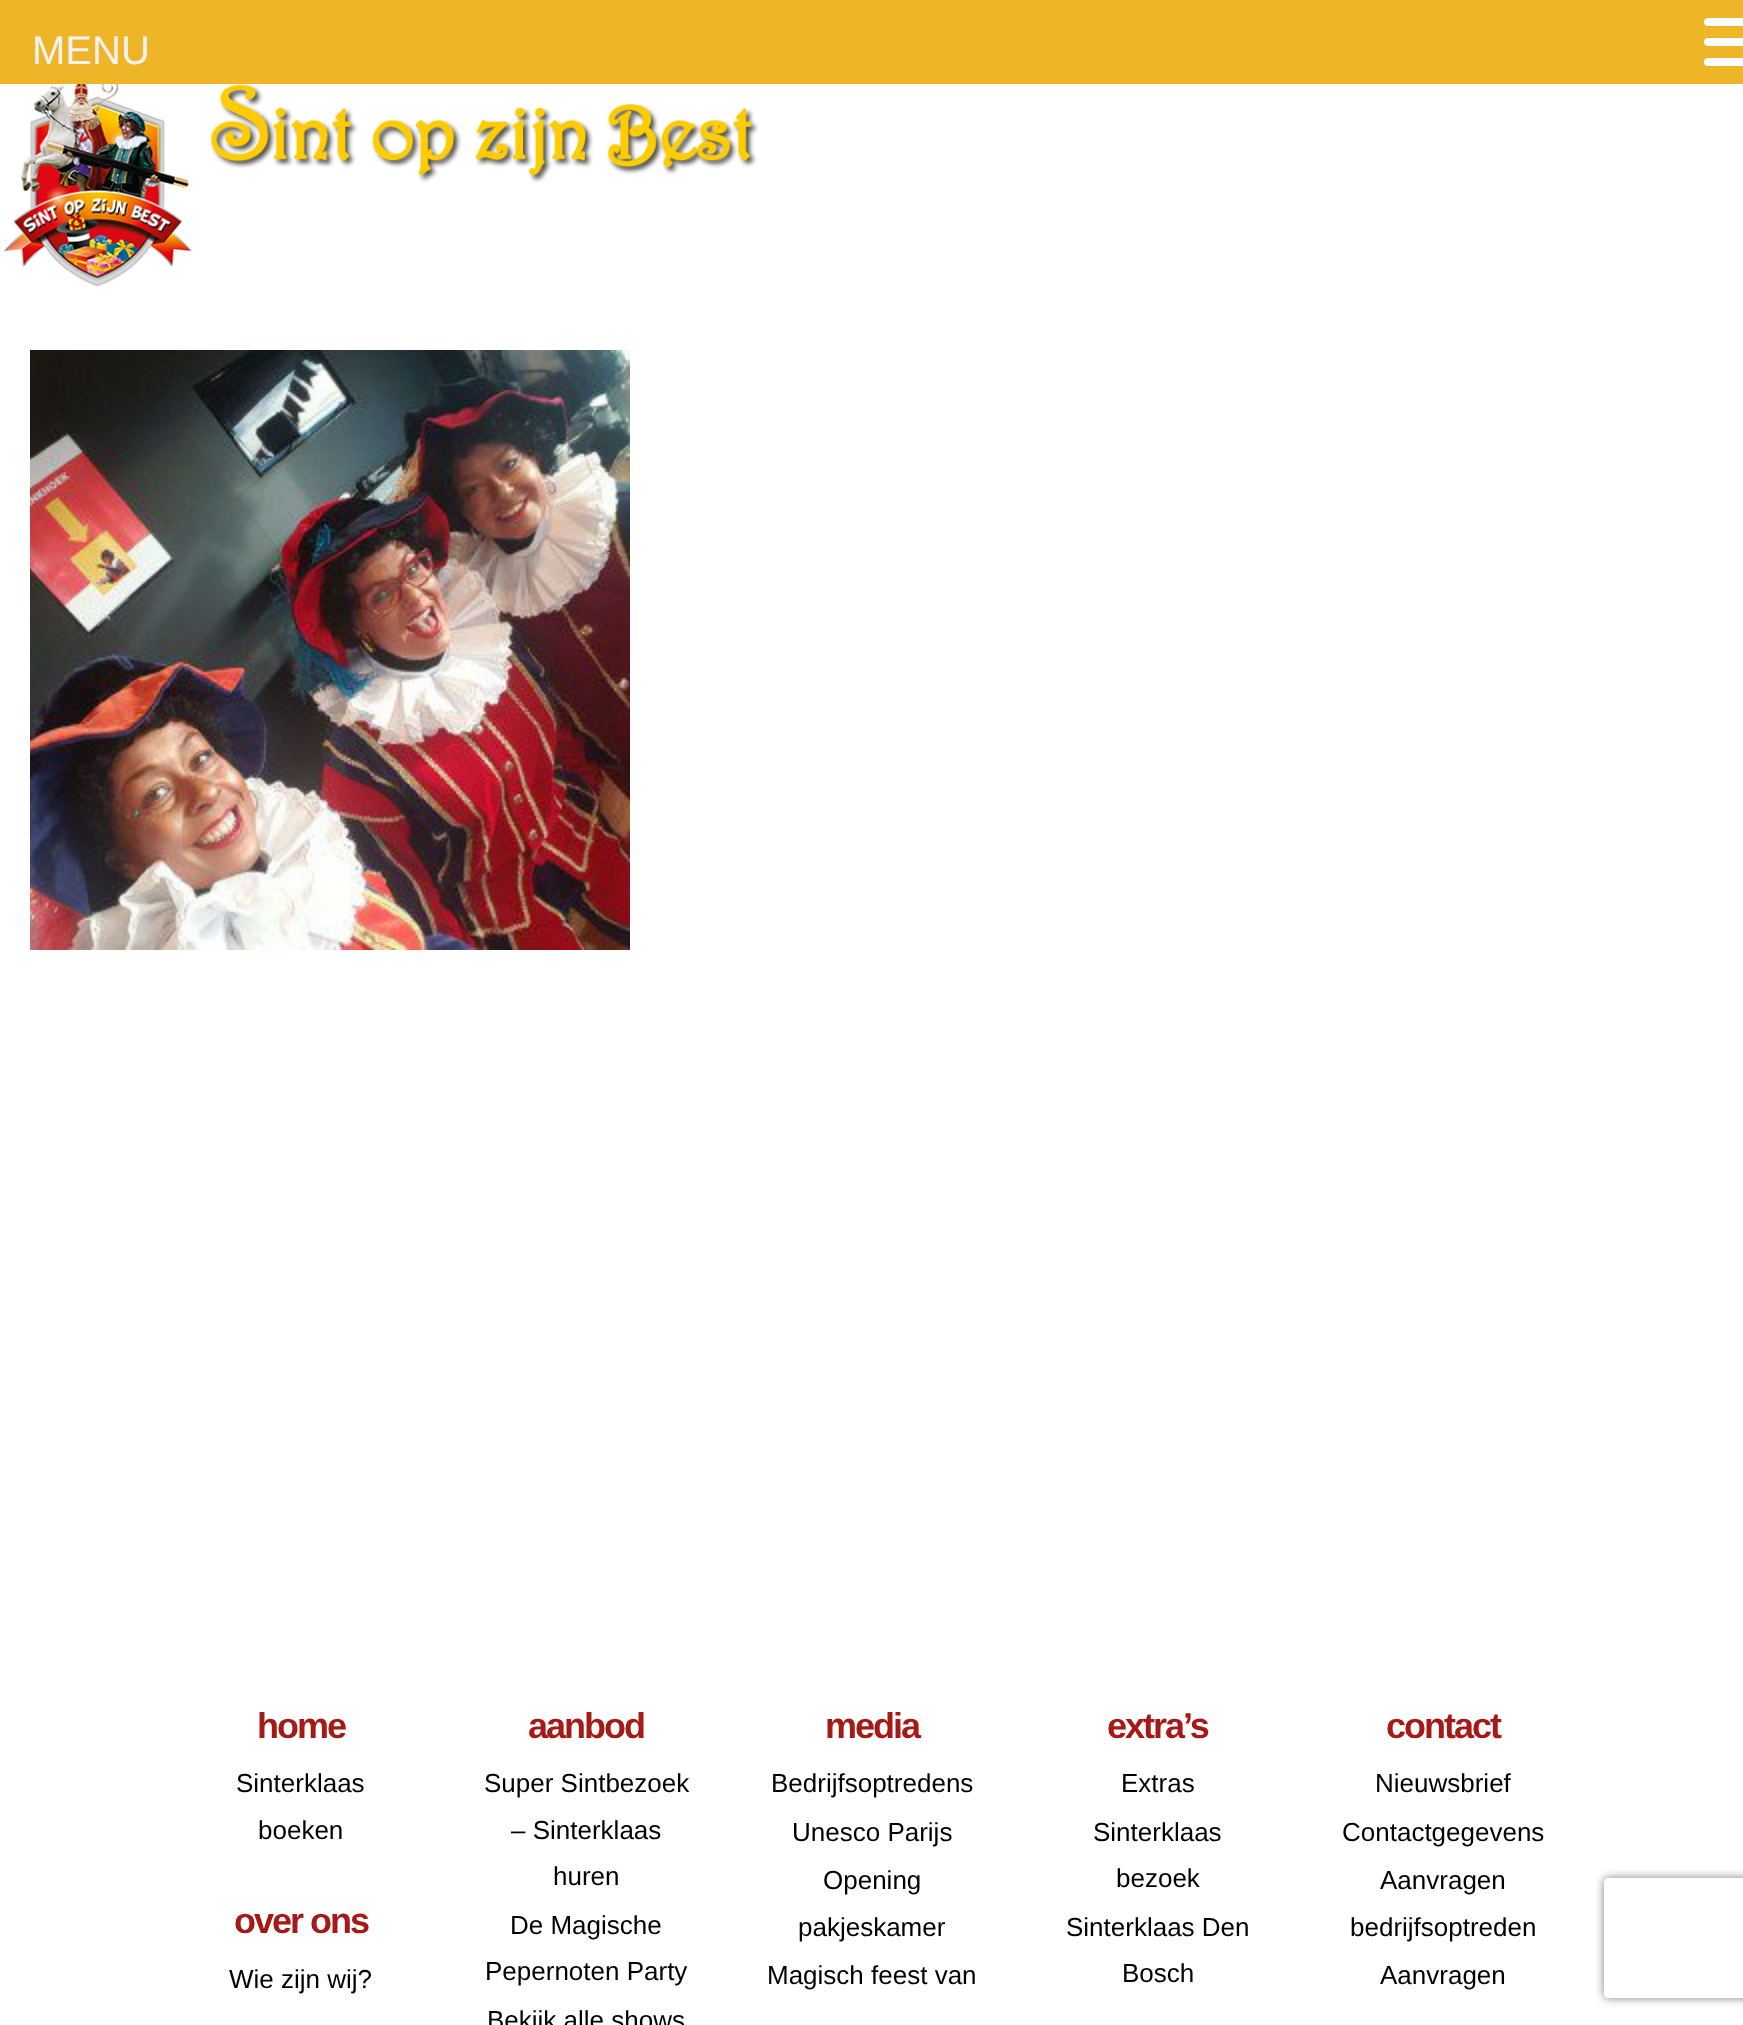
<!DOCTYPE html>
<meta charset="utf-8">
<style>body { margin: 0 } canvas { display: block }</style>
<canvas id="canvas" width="1743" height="2025"></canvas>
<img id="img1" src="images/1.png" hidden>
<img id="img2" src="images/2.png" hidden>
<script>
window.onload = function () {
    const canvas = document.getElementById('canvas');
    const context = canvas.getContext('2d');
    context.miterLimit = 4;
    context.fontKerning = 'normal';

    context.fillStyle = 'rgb(255, 255, 255)';
    context.fillRect(0, 0, 1743, 2025);
    context.fillStyle = 'rgb(239, 181, 41)';
    context.fillRect(0, 0, 1743, 84);
    context.fillStyle = 'rgb(255, 255, 255)';
    context.beginPath();
    context.roundRect(1704, 18, 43, 8, 4);
    context.fill();
    context.beginPath();
    context.roundRect(1704, 38, 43, 8, 4);
    context.fill();
    context.beginPath();
    context.roundRect(1704, 58, 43, 8, 4);
    context.fill();
    context.drawImage(document.getElementById('img1'), 4, 84, 755, 203);
    context.drawImage(document.getElementById('img2'), 30, 350, 600, 600);
    context.save();
    context.beginPath();
    context.moveTo(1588, 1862);
    context.lineTo(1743, 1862);
    context.lineTo(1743, 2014);
    context.lineTo(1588, 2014);
    context.closePath();
    context.moveTo(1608, 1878);
    context.lineTo(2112, 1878);
    context.bezierCurveTo(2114, 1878, 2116, 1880, 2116, 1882);
    context.lineTo(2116, 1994);
    context.bezierCurveTo(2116, 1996, 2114, 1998, 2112, 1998);
    context.lineTo(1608, 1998);
    context.bezierCurveTo(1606, 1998, 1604, 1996, 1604, 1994);
    context.lineTo(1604, 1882);
    context.bezierCurveTo(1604, 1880, 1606, 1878, 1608, 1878);
    context.closePath();
    context.clip('evenodd');
    context.fillStyle = 'rgb(128, 128, 128)';
    context.filter = 'blur(5px)';
    context.beginPath();
    context.roundRect(1604, 1878, 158, 120, 4);
    context.fill();
    context.filter = 'none';
    context.restore();
    context.font = '40px Liberation Sans';
    context.fillStyle = 'rgb(242, 242, 242)';
    context.fillText('MENU', 32, 64);
    context.letterSpacing = '-2px';
    context.font = 'bold 36px Liberation Sans';
    context.fillStyle = 'rgb(165, 25, 23)';
    context.fillText('home', 257, 1738);
    context.letterSpacing = '0px';
    context.font = '26px Liberation Sans';
    context.fillStyle = 'rgb(0, 0, 0)';
    context.fillText('Sinterklaas', 236, 1792);
    context.fillText('boeken', 258, 1839);
    context.letterSpacing = '-2px';
    context.font = 'bold 36px Liberation Sans';
    context.fillStyle = 'rgb(165, 25, 23)';
    context.fillText('over ons', 234, 1933);
    context.letterSpacing = '0px';
    context.font = '26px Liberation Sans';
    context.fillStyle = 'rgb(0, 0, 0)';
    context.fillText('Wie zijn wij?', 229, 1988);
    context.letterSpacing = '-2px';
    context.font = 'bold 36px Liberation Sans';
    context.fillStyle = 'rgb(165, 25, 23)';
    context.fillText('aanbod', 528, 1738);
    context.letterSpacing = '0px';
    context.font = '26px Liberation Sans';
    context.fillStyle = 'rgb(0, 0, 0)';
    context.fillText('Super Sintbezoek', 484, 1792);
    context.fillText('– Sinterklaas', 511, 1839);
    context.fillText('huren', 553, 1885);
    context.fillText('De Magische', 510, 1934);
    context.fillText('Pepernoten Party', 485, 1980);
    context.fillText('Bekijk alle shows', 487, 2029);
    context.letterSpacing = '-2px';
    context.font = 'bold 36px Liberation Sans';
    context.fillStyle = 'rgb(165, 25, 23)';
    context.fillText('media', 825, 1738);
    context.letterSpacing = '0px';
    context.font = '26px Liberation Sans';
    context.fillStyle = 'rgb(0, 0, 0)';
    context.fillText('Bedrijfsoptredens', 771, 1792);
    context.fillText('Unesco Parijs', 792, 1841);
    context.fillText('Opening', 823, 1889);
    context.fillText('pakjeskamer', 798, 1936);
    context.fillText('Magisch feest van', 767, 1984);
    context.letterSpacing = '-2px';
    context.font = 'bold 36px Liberation Sans';
    context.fillStyle = 'rgb(165, 25, 23)';
    context.fillText('extra’s', 1107, 1738);
    context.letterSpacing = '0px';
    context.font = '26px Liberation Sans';
    context.fillStyle = 'rgb(0, 0, 0)';
    context.fillText('Extras', 1121, 1792);
    context.fillText('Sinterklaas', 1093, 1841);
    context.fillText('bezoek', 1116, 1887);
    context.fillText('Sinterklaas Den', 1066, 1936);
    context.fillText('Bosch', 1122, 1982);
    context.letterSpacing = '-2px';
    context.font = 'bold 36px Liberation Sans';
    context.fillStyle = 'rgb(165, 25, 23)';
    context.fillText('contact', 1386, 1738);
    context.letterSpacing = '0px';
    context.font = '26px Liberation Sans';
    context.fillStyle = 'rgb(0, 0, 0)';
    context.fillText('Nieuwsbrief', 1375, 1792);
    context.fillText('Contactgegevens', 1342, 1841);
    context.fillText('Aanvragen', 1380, 1889);
    context.fillText('bedrijfsoptreden', 1350, 1936);
    context.fillText('Aanvragen', 1380, 1984);
};
</script>
